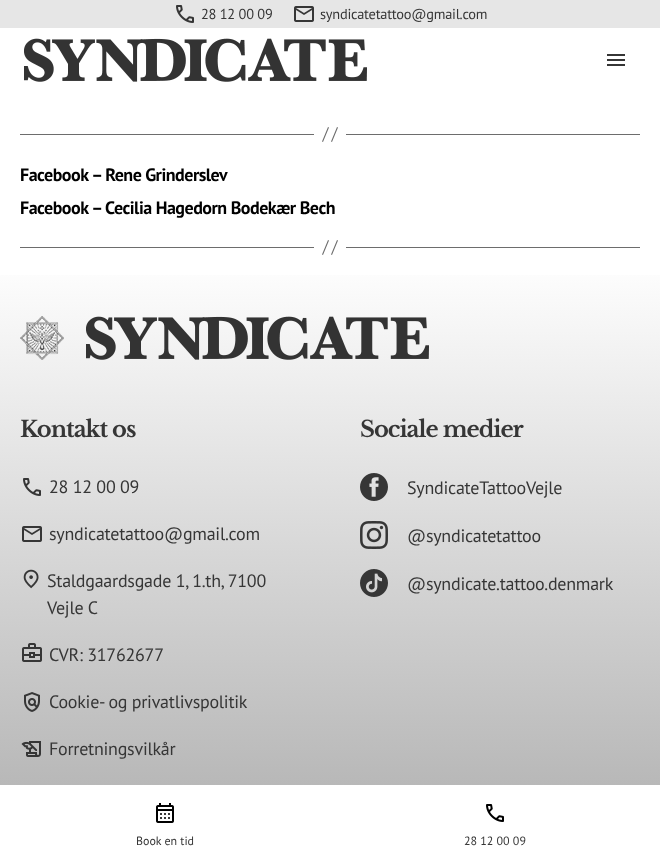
<!DOCTYPE html>
<meta charset="utf-8">
<style>body { margin: 0 } canvas { display: block }</style>
<canvas id="canvas" width="660" height="865"></canvas>
<img id="img1" src="images/1.png" hidden>
<img id="img2" src="images/2.png" hidden>
<img id="img3" src="images/3.png" hidden>
<img id="img4" src="images/4.png" hidden>
<img id="img5" src="images/5.png" hidden>
<img id="img6" src="images/6.png" hidden>
<img id="img7" src="images/7.png" hidden>
<img id="img8" src="images/8.png" hidden>
<img id="img9" src="images/9.png" hidden>
<img id="img10" src="images/10.png" hidden>
<img id="img11" src="images/11.png" hidden>
<img id="img12" src="images/12.png" hidden>
<img id="img13" src="images/13.png" hidden>
<img id="img14" src="images/14.png" hidden>
<img id="img15" src="images/15.png" hidden>
<img id="img16" src="images/16.png" hidden>
<script>
window.onload = function () {
    const canvas = document.getElementById('canvas');
    const context = canvas.getContext('2d');
    context.miterLimit = 4;
    context.fontKerning = 'normal';
    let gradient;

    context.fillStyle = 'rgb(255, 255, 255)';
    context.fillRect(0, 0, 660, 865);
    context.fillStyle = 'rgb(230, 230, 230)';
    context.fillRect(0, 0, 660, 28);
    context.drawImage(document.getElementById('img1'), 176, 5, 18, 18);
    context.drawImage(document.getElementById('img2'), 294, 6, 20, 16);
    context.drawImage(document.getElementById('img3'), 24, 38, 343, 44);
    context.drawImage(document.getElementById('img4'), 607, 54, 18, 12);
    context.fillStyle = 'rgb(109, 109, 109)';
    context.fillRect(346, 134, 294, 1);
    context.fillRect(20, 134, 294, 1);
    context.beginPath();
    context.moveTo(328, 127);
    context.lineTo(329, 127.5);
    context.lineTo(323, 142);
    context.lineTo(322, 141.5);
    context.closePath();
    context.moveTo(337, 127);
    context.lineTo(338, 127.5);
    context.lineTo(332, 142);
    context.lineTo(331, 141.5);
    context.closePath();
    context.fill();
    context.fillRect(346, 247, 294, 1);
    context.fillRect(20, 247, 294, 1);
    context.beginPath();
    context.moveTo(328, 240);
    context.lineTo(329, 240.5);
    context.lineTo(323, 255);
    context.lineTo(322, 254.5);
    context.closePath();
    context.moveTo(337, 240);
    context.lineTo(338, 240.5);
    context.lineTo(332, 255);
    context.lineTo(331, 254.5);
    context.closePath();
    context.fill();
    gradient = context.createLinearGradient(330, 256, 330, 822);
    gradient.addColorStop(0, 'rgb(255, 255, 255)');
    gradient.addColorStop(1, 'rgb(179, 179, 179)');
    context.fillStyle = gradient;
    context.fillRect(0, 275, 660, 510);
    context.drawImage(document.getElementById('img5'), 20, 316, 409, 44);
    context.drawImage(document.getElementById('img6'), 23, 478, 18, 18);
    context.drawImage(document.getElementById('img7'), 22, 526, 20, 16);
    context.drawImage(document.getElementById('img8'), 23, 569, 16, 20);
    context.drawImage(document.getElementById('img9'), 22, 643, 20, 19);
    context.drawImage(document.getElementById('img10'), 24, 692, 16, 20);
    context.drawImage(document.getElementById('img11'), 21, 741, 20, 16);
    context.drawImage(document.getElementById('img12'), 360, 473, 28, 28);
    context.drawImage(document.getElementById('img13'), 360, 521, 28, 28);
    context.drawImage(document.getElementById('img14'), 360, 569, 28, 28);
    context.drawImage(document.getElementById('img15'), 156, 803, 18, 20);
    context.drawImage(document.getElementById('img16'), 486, 804, 18, 18);
    context.letterSpacing = '-0.25px';
    context.font = '14.4px PT Sans';
    context.fillStyle = 'rgb(54, 54, 54)';
    context.fillText('28 12 00 09', 201, 19);
    context.fillText('syndicatetattoo@gmail.com', 320, 19);
    context.letterSpacing = '-0.5px';
    context.font = 'bold 18px PT Sans';
    context.fillStyle = 'rgb(0, 0, 0)';
    context.fillText('Facebook – Rene Grinderslev', 20, 181);
    context.fillText('Facebook – Cecilia Hagedorn Bodekær Bech', 20, 214);
    context.letterSpacing = '-1px';
    context.font = 'bold 22.5px Libre Baskerville';
    context.fillStyle = 'rgb(54, 54, 54)';
    context.fillText('Kontakt os', 20, 437);
    context.letterSpacing = '-0.25px';
    context.font = '18px PT Sans';
    context.fillText('28 12 00 09', 49, 493);
    context.fillText('syndicatetattoo@gmail.com', 49, 540);
    context.fillText('Staldgaardsgade 1, 1.th, 7100', 47, 587);
    context.fillText('Vejle C', 47, 614);
    context.fillText('CVR: 31762677', 49, 661);
    context.fillText('Cookie- og privatlivspolitik', 49, 708);
    context.fillText('Forretningsvilkår', 49, 755);
    context.letterSpacing = '-1px';
    context.font = 'bold 22.5px Libre Baskerville';
    context.fillText('Sociale medier', 360, 437);
    context.letterSpacing = '-0.25px';
    context.font = '18px PT Sans';
    context.fillText('SyndicateTattooVejle', 407, 494);
    context.fillText('@syndicatetattoo', 407, 542);
    context.fillText('@syndicate.tattoo.denmark', 407, 590);
    context.letterSpacing = '0px';
    context.font = '12px PT Sans';
    context.fillText('Book en tid', 136, 845);
    context.fillText('28 12 00 09', 464, 845);
};
</script>
